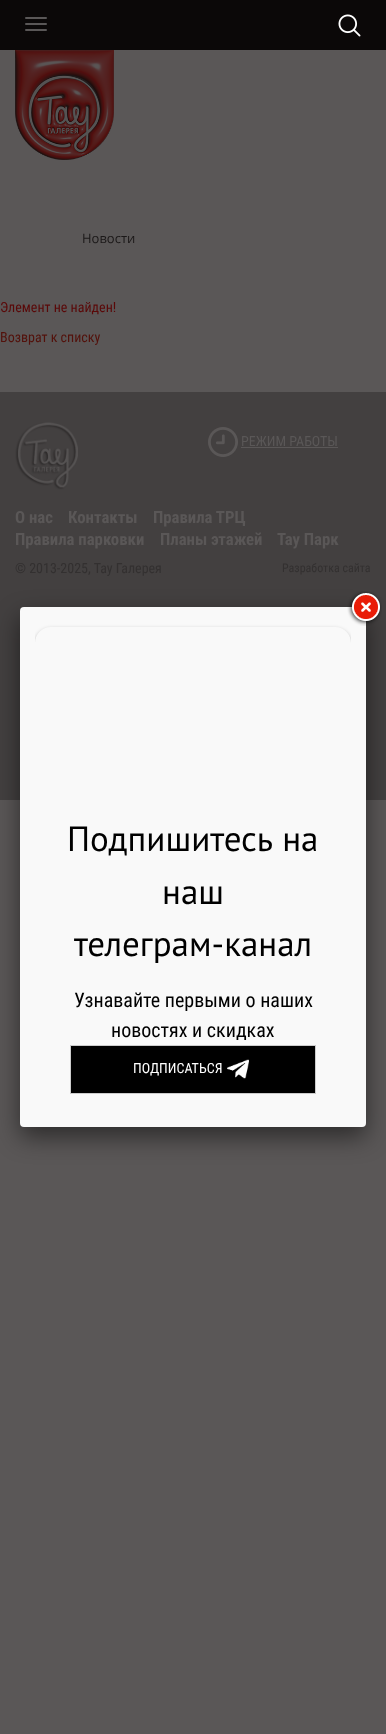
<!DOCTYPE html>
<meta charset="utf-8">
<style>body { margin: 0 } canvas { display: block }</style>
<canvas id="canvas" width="386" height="1734"></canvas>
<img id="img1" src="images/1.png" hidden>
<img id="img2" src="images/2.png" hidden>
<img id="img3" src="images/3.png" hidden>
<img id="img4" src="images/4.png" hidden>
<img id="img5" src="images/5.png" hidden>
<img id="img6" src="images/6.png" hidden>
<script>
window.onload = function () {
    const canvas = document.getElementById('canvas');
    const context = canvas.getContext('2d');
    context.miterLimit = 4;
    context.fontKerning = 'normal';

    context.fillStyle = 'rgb(90, 87, 87)';
    context.fillRect(0, 0, 386, 1734);
    context.fillStyle = 'rgb(11, 8, 8)';
    context.fillRect(0, 0, 386, 50);
    context.fillStyle = 'rgb(90, 87, 87)';
    context.beginPath();
    context.roundRect(25, 17, 22, 2, 1);
    context.fill();
    context.beginPath();
    context.roundRect(25, 23, 22, 2, 1);
    context.fill();
    context.beginPath();
    context.roundRect(25, 29, 22, 2, 1);
    context.fill();
    context.drawImage(document.getElementById('img1'), 338, 14, 23, 23);
    context.drawImage(document.getElementById('img2'), 15, 50, 99, 110);
    context.fillStyle = 'rgb(67, 64, 64)';
    context.fillRect(0, 392, 386, 408);
    context.drawImage(document.getElementById('img3'), 15, 422, 63, 68);
    context.drawImage(document.getElementById('img4'), 208, 427, 30, 30);
    context.fillStyle = 'rgb(90, 87, 87)';
    context.fillRect(241, 447, 97, 1);
    context.fillStyle = 'rgba(0, 0, 0, 0.5)';
    context.filter = 'blur(12.5px)';
    context.beginPath();
    context.roundRect(20, 617, 346, 520, 4);
    context.fill();
    context.filter = 'none';
    context.fillStyle = 'rgb(249, 249, 249)';
    context.beginPath();
    context.roundRect(20, 607, 346, 520, 4);
    context.fill();
    context.save();
    context.beginPath();
    context.rect(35, 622, 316, 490);
    context.clip();
    context.beginPath();
    context.moveTo(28, 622);
    context.lineTo(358, 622);
    context.lineTo(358, 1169);
    context.lineTo(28, 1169);
    context.closePath();
    context.moveTo(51, 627);
    context.lineTo(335, 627);
    context.bezierCurveTo(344, 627, 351, 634, 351, 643);
    context.lineTo(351, 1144);
    context.bezierCurveTo(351, 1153, 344, 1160, 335, 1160);
    context.lineTo(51, 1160);
    context.bezierCurveTo(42, 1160, 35, 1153, 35, 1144);
    context.lineTo(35, 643);
    context.bezierCurveTo(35, 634, 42, 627, 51, 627);
    context.closePath();
    context.clip('evenodd');
    context.fillStyle = 'rgba(0, 0, 0, 0.3)';
    context.filter = 'blur(2px)';
    context.beginPath();
    context.roundRect(35, 629, 316, 533, 16);
    context.fill();
    context.filter = 'none';
    context.restore();
    context.drawImage(document.getElementById('img5'), 347, 591, 35, 35);
    context.fillStyle = 'rgb(0, 0, 0)';
    context.beginPath();
    context.rect(70.5, 1045.5, 245, 48);
    context.fill();
    context.strokeStyle = 'rgb(204, 204, 204)';
    context.stroke();
    context.drawImage(document.getElementById('img6'), 227, 1059, 22, 20);
    context.font = '13px Open Sans';
    context.fillStyle = 'rgb(27, 24, 24)';
    context.fillText('Новости', 82, 243);
    context.font = '14px Roboto Condensed';
    context.fillStyle = 'rgb(90, 8, 8)';
    context.fillText('Элемент не найден!', 0, 312);
    context.fillStyle = 'rgb(83, 17, 11)';
    context.fillText('Возврат к списку', 0, 342);
    context.fillStyle = 'rgb(90, 87, 87)';
    context.fillText('РЕЖИМ РАБОТЫ', 241, 446);
    context.font = 'bold 16.75px Roboto Condensed';
    context.fillText('О нас', 15, 523);
    context.fillText('Контакты', 68, 523);
    context.fillText('Правила ТРЦ', 153, 523);
    context.fillText('Правила парковки', 15, 545);
    context.fillText('Планы этажей', 160, 545);
    context.fillText('Тау Парк', 277, 545);
    context.font = '14px Roboto Condensed';
    context.fillStyle = 'rgb(51, 48, 48)';
    context.fillText('© 2013-2025, Тау Галерея', 15, 573);
    context.font = '12px Roboto Condensed';
    context.fillText('Разработка сайта', 282, 572);
    context.wordSpacing = '1px';
    context.font = '35px PT Sans';
    context.fillStyle = 'rgb(0, 0, 0)';
    context.fillText('Подпишитесь на', 67, 851);
    context.wordSpacing = '0px';
    context.fillText('наш', 162, 904);
    context.fillText('телеграм-канал', 74, 956);
    context.font = '20px Roboto Condensed';
    context.fillText('Узнавайте первыми о наших', 74, 1007);
    context.fillText('новостях и скидках', 111, 1037);
    context.font = '14px Roboto Condensed';
    context.fillStyle = 'rgb(255, 255, 255)';
    context.fillText('ПОДПИСАТЬСЯ', 133, 1073);
};
</script>
